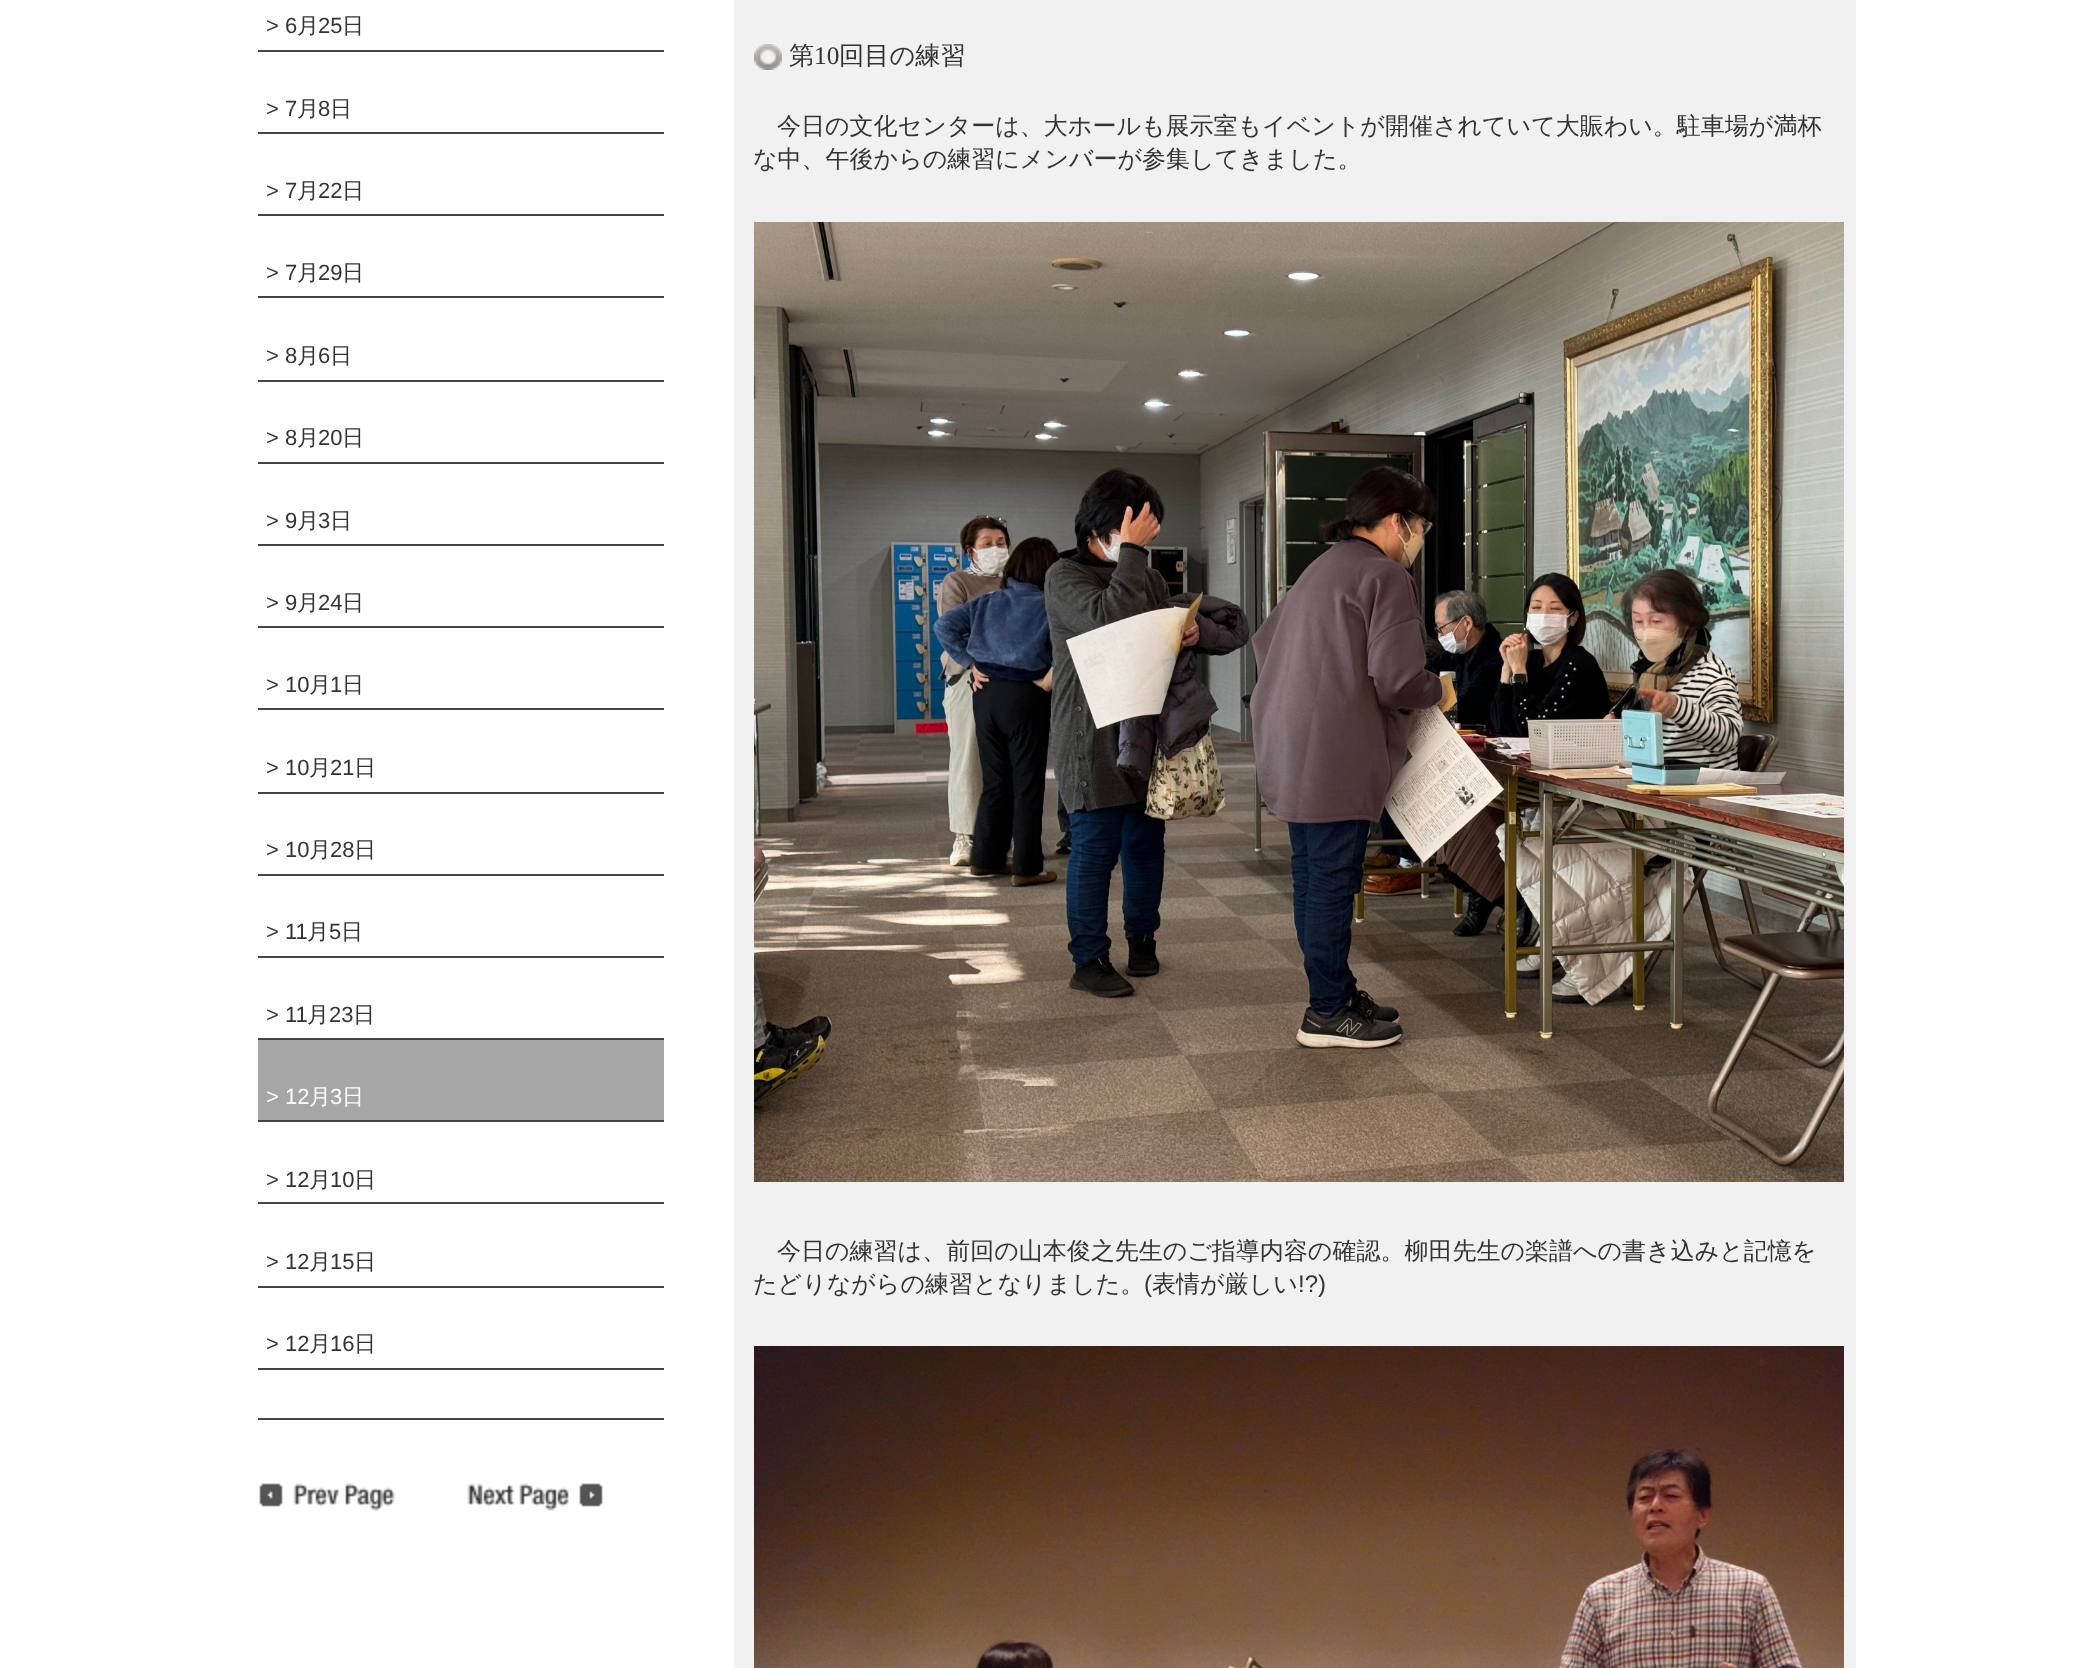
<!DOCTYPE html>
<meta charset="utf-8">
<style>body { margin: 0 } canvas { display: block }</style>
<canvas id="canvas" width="2093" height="1668"></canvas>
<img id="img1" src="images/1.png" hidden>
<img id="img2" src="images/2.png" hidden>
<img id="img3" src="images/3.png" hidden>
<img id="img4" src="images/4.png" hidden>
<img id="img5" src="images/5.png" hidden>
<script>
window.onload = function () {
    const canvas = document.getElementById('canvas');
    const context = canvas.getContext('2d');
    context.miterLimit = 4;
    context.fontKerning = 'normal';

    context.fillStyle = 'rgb(255, 255, 255)';
    context.fillRect(0, 0, 2093, 1668);
    context.fillStyle = 'rgb(68, 68, 68)';
    context.fillRect(258, 50, 406, 2);
    context.fillRect(258, 132, 406, 2);
    context.fillRect(258, 214, 406, 2);
    context.fillRect(258, 296, 406, 2);
    context.fillRect(258, 380, 406, 2);
    context.fillRect(258, 462, 406, 2);
    context.fillRect(258, 544, 406, 2);
    context.fillRect(258, 626, 406, 2);
    context.fillRect(258, 708, 406, 2);
    context.fillRect(258, 792, 406, 2);
    context.fillRect(258, 874, 406, 2);
    context.fillRect(258, 956, 406, 2);
    context.fillRect(258, 1038, 406, 2);
    context.fillStyle = 'rgb(166, 166, 166)';
    context.fillRect(258, 1040, 406, 80);
    context.fillStyle = 'rgb(68, 68, 68)';
    context.fillRect(258, 1120, 406, 2);
    context.fillRect(258, 1202, 406, 2);
    context.fillRect(258, 1286, 406, 2);
    context.fillRect(258, 1368, 406, 2);
    context.fillRect(258, 1418, 406, 2);
    context.drawImage(document.getElementById('img1'), 259, 1483, 136, 28);
    context.drawImage(document.getElementById('img2'), 467, 1483, 136, 28);
    context.fillStyle = 'rgb(241, 241, 241)';
    context.fillRect(734, 0, 1122, 1668);
    context.drawImage(document.getElementById('img3'), 754, 44, 28, 26);
    context.drawImage(document.getElementById('img4'), 754, 222, 1090, 960);
    context.drawImage(document.getElementById('img5'), 754, 1346, 1090, 322);
    context.font = '22px Liberation Sans';
    context.fillStyle = 'rgb(51, 51, 51)';
    context.fillText('> 6', 266, 33);
    context.font = '500 22px WenQuanYi Zen Hei';
    context.fillText('月', 297, 33);
    context.font = '22px Liberation Sans';
    context.fillText('25', 318, 33);
    context.font = '500 22px WenQuanYi Zen Hei';
    context.fillText('日', 342, 33);
    context.font = '22px Liberation Sans';
    context.fillText('> 7', 266, 116);
    context.font = '500 22px WenQuanYi Zen Hei';
    context.fillText('月', 297, 116);
    context.font = '22px Liberation Sans';
    context.fillText('8', 318, 116);
    context.font = '500 22px WenQuanYi Zen Hei';
    context.fillText('日', 330, 116);
    context.font = '22px Liberation Sans';
    context.fillText('> 7', 266, 198);
    context.font = '500 22px WenQuanYi Zen Hei';
    context.fillText('月', 297, 198);
    context.font = '22px Liberation Sans';
    context.fillText('22', 318, 198);
    context.font = '500 22px WenQuanYi Zen Hei';
    context.fillText('日', 342, 198);
    context.font = '22px Liberation Sans';
    context.fillText('> 7', 266, 280);
    context.font = '500 22px WenQuanYi Zen Hei';
    context.fillText('月', 297, 280);
    context.font = '22px Liberation Sans';
    context.fillText('29', 318, 280);
    context.font = '500 22px WenQuanYi Zen Hei';
    context.fillText('日', 342, 280);
    context.font = '22px Liberation Sans';
    context.fillText('> 8', 266, 363);
    context.font = '500 22px WenQuanYi Zen Hei';
    context.fillText('月', 297, 363);
    context.font = '22px Liberation Sans';
    context.fillText('6', 318, 363);
    context.font = '500 22px WenQuanYi Zen Hei';
    context.fillText('日', 330, 363);
    context.font = '22px Liberation Sans';
    context.fillText('> 8', 266, 445);
    context.font = '500 22px WenQuanYi Zen Hei';
    context.fillText('月', 297, 445);
    context.font = '22px Liberation Sans';
    context.fillText('20', 318, 445);
    context.font = '500 22px WenQuanYi Zen Hei';
    context.fillText('日', 342, 445);
    context.font = '22px Liberation Sans';
    context.fillText('> 9', 266, 528);
    context.font = '500 22px WenQuanYi Zen Hei';
    context.fillText('月', 297, 528);
    context.font = '22px Liberation Sans';
    context.fillText('3', 318, 528);
    context.font = '500 22px WenQuanYi Zen Hei';
    context.fillText('日', 330, 528);
    context.font = '22px Liberation Sans';
    context.fillText('> 9', 266, 610);
    context.font = '500 22px WenQuanYi Zen Hei';
    context.fillText('月', 297, 610);
    context.font = '22px Liberation Sans';
    context.fillText('24', 318, 610);
    context.font = '500 22px WenQuanYi Zen Hei';
    context.fillText('日', 342, 610);
    context.font = '22px Liberation Sans';
    context.fillText('> 10', 266, 692);
    context.font = '500 22px WenQuanYi Zen Hei';
    context.fillText('月', 309, 692);
    context.font = '22px Liberation Sans';
    context.fillText('1', 330, 692);
    context.font = '500 22px WenQuanYi Zen Hei';
    context.fillText('日', 342, 692);
    context.font = '22px Liberation Sans';
    context.fillText('> 10', 266, 775);
    context.font = '500 22px WenQuanYi Zen Hei';
    context.fillText('月', 309, 775);
    context.font = '22px Liberation Sans';
    context.fillText('21', 330, 775);
    context.font = '500 22px WenQuanYi Zen Hei';
    context.fillText('日', 354, 775);
    context.font = '22px Liberation Sans';
    context.fillText('> 10', 266, 857);
    context.font = '500 22px WenQuanYi Zen Hei';
    context.fillText('月', 309, 857);
    context.font = '22px Liberation Sans';
    context.fillText('28', 330, 857);
    context.font = '500 22px WenQuanYi Zen Hei';
    context.fillText('日', 354, 857);
    context.font = '22px Liberation Sans';
    context.fillText('> 11', 266, 939);
    context.font = '500 22px WenQuanYi Zen Hei';
    context.fillText('月', 307, 939);
    context.font = '22px Liberation Sans';
    context.fillText('5', 329, 939);
    context.font = '500 22px WenQuanYi Zen Hei';
    context.fillText('日', 341, 939);
    context.font = '22px Liberation Sans';
    context.fillText('> 11', 266, 1022);
    context.font = '500 22px WenQuanYi Zen Hei';
    context.fillText('月', 307, 1022);
    context.font = '22px Liberation Sans';
    context.fillText('23', 329, 1022);
    context.font = '500 22px WenQuanYi Zen Hei';
    context.fillText('日', 353, 1022);
    context.font = '22px Liberation Sans';
    context.fillStyle = 'rgb(255, 255, 255)';
    context.fillText('> 12', 266, 1104);
    context.font = '500 22px WenQuanYi Zen Hei';
    context.fillText('月', 309, 1104);
    context.font = '22px Liberation Sans';
    context.fillText('3', 330, 1104);
    context.font = '500 22px WenQuanYi Zen Hei';
    context.fillText('日', 342, 1104);
    context.font = '22px Liberation Sans';
    context.fillStyle = 'rgb(51, 51, 51)';
    context.fillText('> 12', 266, 1187);
    context.font = '500 22px WenQuanYi Zen Hei';
    context.fillText('月', 309, 1187);
    context.font = '22px Liberation Sans';
    context.fillText('10', 330, 1187);
    context.font = '500 22px WenQuanYi Zen Hei';
    context.fillText('日', 354, 1187);
    context.font = '22px Liberation Sans';
    context.fillText('> 12', 266, 1269);
    context.font = '500 22px WenQuanYi Zen Hei';
    context.fillText('月', 309, 1269);
    context.font = '22px Liberation Sans';
    context.fillText('15', 330, 1269);
    context.font = '500 22px WenQuanYi Zen Hei';
    context.fillText('日', 354, 1269);
    context.font = '22px Liberation Sans';
    context.fillText('> 12', 266, 1351);
    context.font = '500 22px WenQuanYi Zen Hei';
    context.fillText('月', 309, 1351);
    context.font = '22px Liberation Sans';
    context.fillText('16', 330, 1351);
    context.font = '500 22px WenQuanYi Zen Hei';
    context.fillText('日', 354, 1351);
    context.font = '500 25.25px WenQuanYi Zen Hei';
    context.fillText('第', 789, 64);
    context.font = '25.25px Liberation Serif';
    context.fillText('10', 814, 64);
    context.font = '500 25.25px WenQuanYi Zen Hei';
    context.fillText('回目の練習', 839, 64);
    context.font = '500 24px WenQuanYi Zen Hei';
    context.fillText('今日の文化センターは、大ホールも展示室もイベントが開催されていて大賑わい。駐車場が満杯', 777, 134);
    context.fillText('な中、午後からの練習にメンバーが参集してきました。', 753, 167);
    context.fillText('今日の練習は、前回の山本俊之先生のご指導内容の確認。柳田先生の楽譜への書き込みと記憶を', 777, 1259);
    context.fillText('たどりながらの練習となりました。', 753, 1292);
    context.font = '24px Liberation Sans';
    context.fillText('(', 1144, 1292);
    context.font = '500 24px WenQuanYi Zen Hei';
    context.fillText('表情が厳しい', 1152, 1292);
    context.font = '24px Liberation Sans';
    context.fillText('!?)', 1298, 1292);
};
</script>
